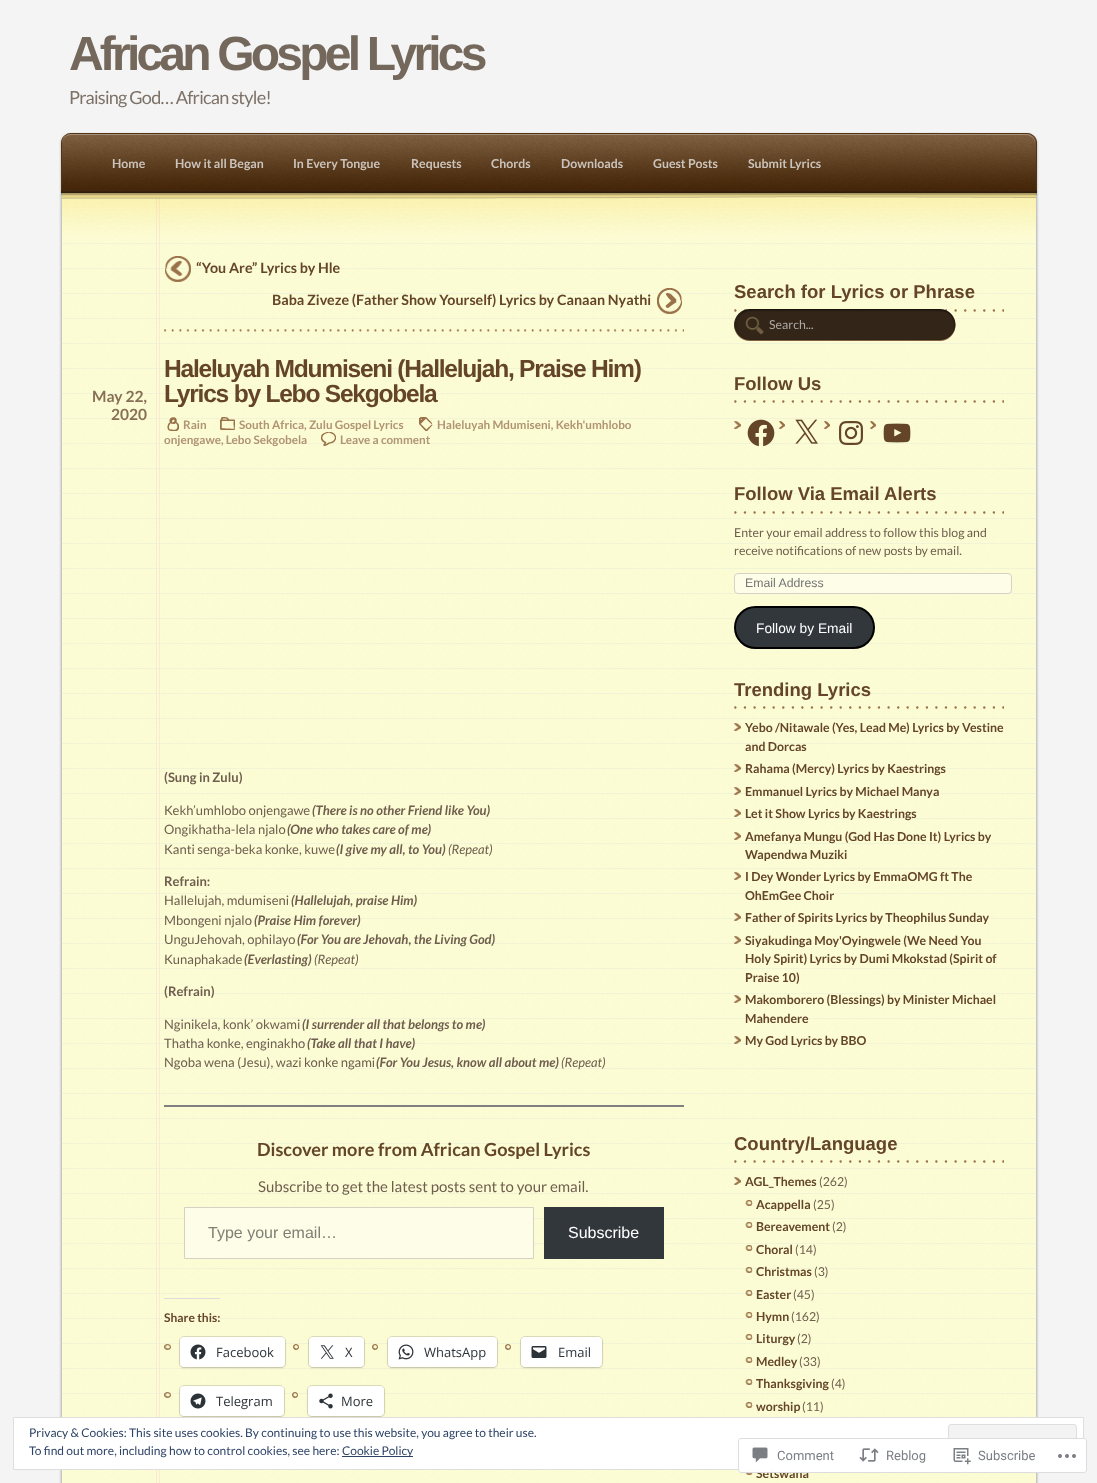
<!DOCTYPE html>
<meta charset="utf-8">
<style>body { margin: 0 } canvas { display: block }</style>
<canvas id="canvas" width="1097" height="1483"></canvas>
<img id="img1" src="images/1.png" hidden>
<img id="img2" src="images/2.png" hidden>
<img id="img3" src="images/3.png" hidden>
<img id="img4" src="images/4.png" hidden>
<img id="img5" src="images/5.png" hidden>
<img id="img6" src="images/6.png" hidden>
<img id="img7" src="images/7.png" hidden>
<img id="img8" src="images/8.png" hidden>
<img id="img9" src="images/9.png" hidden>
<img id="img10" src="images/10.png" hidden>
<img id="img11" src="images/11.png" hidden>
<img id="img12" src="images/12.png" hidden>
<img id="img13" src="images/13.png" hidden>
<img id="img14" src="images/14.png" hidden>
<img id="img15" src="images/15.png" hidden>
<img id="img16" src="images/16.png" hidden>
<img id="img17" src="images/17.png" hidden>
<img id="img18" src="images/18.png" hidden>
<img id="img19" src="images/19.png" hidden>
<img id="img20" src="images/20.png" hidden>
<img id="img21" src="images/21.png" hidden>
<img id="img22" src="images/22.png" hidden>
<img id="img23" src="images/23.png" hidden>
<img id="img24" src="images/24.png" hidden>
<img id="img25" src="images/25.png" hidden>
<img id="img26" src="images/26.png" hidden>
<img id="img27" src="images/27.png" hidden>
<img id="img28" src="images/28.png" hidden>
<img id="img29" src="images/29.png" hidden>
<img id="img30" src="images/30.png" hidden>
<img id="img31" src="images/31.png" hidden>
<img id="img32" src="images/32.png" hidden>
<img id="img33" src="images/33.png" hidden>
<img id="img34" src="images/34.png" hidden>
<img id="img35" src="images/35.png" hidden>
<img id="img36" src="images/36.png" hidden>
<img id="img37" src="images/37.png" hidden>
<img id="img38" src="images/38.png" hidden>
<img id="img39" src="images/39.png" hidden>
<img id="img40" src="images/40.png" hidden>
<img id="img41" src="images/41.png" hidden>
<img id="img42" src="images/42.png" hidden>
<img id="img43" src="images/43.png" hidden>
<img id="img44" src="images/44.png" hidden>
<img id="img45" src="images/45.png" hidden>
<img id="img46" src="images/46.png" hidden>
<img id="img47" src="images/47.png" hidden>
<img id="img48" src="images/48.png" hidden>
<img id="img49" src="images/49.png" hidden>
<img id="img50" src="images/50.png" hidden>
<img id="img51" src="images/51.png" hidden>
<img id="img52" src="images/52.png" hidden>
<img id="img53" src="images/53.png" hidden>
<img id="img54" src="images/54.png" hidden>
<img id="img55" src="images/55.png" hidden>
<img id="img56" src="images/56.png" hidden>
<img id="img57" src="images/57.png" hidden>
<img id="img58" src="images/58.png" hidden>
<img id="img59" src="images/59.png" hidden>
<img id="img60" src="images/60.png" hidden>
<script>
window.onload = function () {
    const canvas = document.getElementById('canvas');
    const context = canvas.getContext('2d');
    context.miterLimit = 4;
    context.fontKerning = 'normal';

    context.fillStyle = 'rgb(245, 244, 244)';
    context.fillRect(0, 0, 1097, 1483);
    context.drawImage(document.getElementById('img1'), 59, 132, 980, 106);
    context.drawImage(document.getElementById('img2'), 59, 238, 980, 1245);
    context.drawImage(document.getElementById('img3'), 164, 329, 520, 3);
    context.drawImage(document.getElementById('img4'), 165, 256, 26, 26);
    context.drawImage(document.getElementById('img5'), 657, 288, 25, 26);
    context.drawImage(document.getElementById('img6'), 167, 417, 12, 14);
    context.drawImage(document.getElementById('img7'), 220, 417, 15, 13);
    context.drawImage(document.getElementById('img8'), 419, 417, 14, 14);
    context.drawImage(document.getElementById('img9'), 321, 432, 15, 14);
    context.fillStyle = 'rgb(128, 128, 128)';
    context.fillRect(164, 1105, 520, 2);
    context.fillStyle = 'rgb(253, 253, 232)';
    context.beginPath();
    context.rect(184.5, 1207.5, 349, 51);
    context.fill();
    context.strokeStyle = 'rgb(214, 209, 199)';
    context.stroke();
    context.fillStyle = 'rgb(50, 55, 60)';
    context.fillRect(544, 1207, 120, 52);
    context.fillStyle = 'rgb(220, 220, 222)';
    context.fillRect(164, 1298, 56, 1);
    context.drawImage(document.getElementById('img10'), 164, 1344, 7, 6);
    context.beginPath();
    context.roundRect(179.5, 1336.5, 106, 31, 4.5);
    context.strokeStyle = 'rgba(0, 0, 0, 0.12)';
    context.stroke();
    context.fillStyle = 'rgba(0, 0, 0, 0.12)';
    context.filter = 'blur(1px)';
    context.beginPath();
    context.roundRect(180, 1338, 105, 30, 4);
    context.fill();
    context.filter = 'none';
    context.fillStyle = 'rgb(255, 255, 255)';
    context.beginPath();
    context.roundRect(180, 1337, 105, 30, 4);
    context.fill();
    context.drawImage(document.getElementById('img11'), 190, 1344, 16, 16);
    context.drawImage(document.getElementById('img12'), 293, 1344, 6, 6);
    context.beginPath();
    context.roundRect(308.5, 1336.5, 56, 31, 4.5);
    context.stroke();
    context.fillStyle = 'rgba(0, 0, 0, 0.12)';
    context.filter = 'blur(1px)';
    context.beginPath();
    context.roundRect(309, 1338, 55, 30, 4);
    context.fill();
    context.filter = 'none';
    context.fillStyle = 'rgb(255, 255, 255)';
    context.beginPath();
    context.roundRect(309, 1337, 55, 30, 4);
    context.fill();
    context.drawImage(document.getElementById('img13'), 320, 1345, 14, 14);
    context.drawImage(document.getElementById('img14'), 372, 1344, 6, 6);
    context.beginPath();
    context.roundRect(387.5, 1336.5, 110, 31, 4.5);
    context.stroke();
    context.fillStyle = 'rgba(0, 0, 0, 0.12)';
    context.filter = 'blur(1px)';
    context.beginPath();
    context.roundRect(388, 1338, 109, 30, 4);
    context.fill();
    context.filter = 'none';
    context.fillStyle = 'rgb(255, 255, 255)';
    context.beginPath();
    context.roundRect(388, 1337, 109, 30, 4);
    context.fill();
    context.drawImage(document.getElementById('img15'), 398, 1344, 16, 16);
    context.drawImage(document.getElementById('img16'), 505, 1344, 6, 6);
    context.beginPath();
    context.roundRect(520.5, 1336.5, 82, 31, 4.5);
    context.stroke();
    context.fillStyle = 'rgba(0, 0, 0, 0.12)';
    context.filter = 'blur(1px)';
    context.beginPath();
    context.roundRect(521, 1338, 81, 30, 4);
    context.fill();
    context.filter = 'none';
    context.fillStyle = 'rgb(255, 255, 255)';
    context.beginPath();
    context.roundRect(521, 1337, 81, 30, 4);
    context.fill();
    context.drawImage(document.getElementById('img17'), 531, 1346, 16, 12);
    context.drawImage(document.getElementById('img18'), 164, 1392, 7, 6);
    context.beginPath();
    context.roundRect(179.5, 1385.5, 105, 31, 4.5);
    context.stroke();
    context.fillStyle = 'rgba(0, 0, 0, 0.12)';
    context.filter = 'blur(1px)';
    context.beginPath();
    context.roundRect(180, 1387, 104, 30, 4);
    context.fill();
    context.filter = 'none';
    context.fillStyle = 'rgb(255, 255, 255)';
    context.beginPath();
    context.roundRect(180, 1386, 104, 30, 4);
    context.fill();
    context.drawImage(document.getElementById('img19'), 190, 1393, 16, 16);
    context.drawImage(document.getElementById('img20'), 292, 1392, 6, 6);
    context.beginPath();
    context.roundRect(307.5, 1385.5, 77, 31, 4.5);
    context.stroke();
    context.fillStyle = 'rgba(0, 0, 0, 0.12)';
    context.filter = 'blur(1px)';
    context.beginPath();
    context.roundRect(308, 1387, 76, 30, 4);
    context.fill();
    context.filter = 'none';
    context.fillStyle = 'rgb(255, 255, 255)';
    context.beginPath();
    context.roundRect(308, 1386, 76, 30, 4);
    context.fill();
    context.drawImage(document.getElementById('img21'), 319, 1393, 14, 16);
    context.drawImage(document.getElementById('img22'), 734, 309, 270, 3);
    context.drawImage(document.getElementById('img23'), 734, 309, 222, 32);
    context.drawImage(document.getElementById('img24'), 734, 400, 270, 3);
    context.drawImage(document.getElementById('img25'), 734, 421, 7, 8);
    context.drawImage(document.getElementById('img26'), 747, 419, 28, 28);
    context.drawImage(document.getElementById('img27'), 779, 421, 6, 8);
    context.drawImage(document.getElementById('img28'), 795, 419, 23, 25);
    context.drawImage(document.getElementById('img29'), 824, 421, 6, 8);
    context.drawImage(document.getElementById('img30'), 839, 421, 24, 24);
    context.drawImage(document.getElementById('img31'), 870, 421, 6, 8);
    context.drawImage(document.getElementById('img32'), 883, 423, 28, 20);
    context.drawImage(document.getElementById('img33'), 734, 511, 270, 3);
    context.fillStyle = 'rgb(253, 253, 232)';
    context.beginPath();
    context.roundRect(734.5, 573.5, 277, 20, 3.5);
    context.fill();
    context.strokeStyle = 'rgb(214, 209, 199)';
    context.stroke();
    context.fillStyle = 'rgb(50, 55, 60)';
    context.beginPath();
    context.roundRect(735, 607, 139, 41, 20.5);
    context.fill();
    context.strokeStyle = 'rgb(0, 0, 0)';
    context.lineWidth = 2;
    context.stroke();
    context.drawImage(document.getElementById('img34'), 734, 706, 270, 3);
    context.drawImage(document.getElementById('img35'), 734, 723, 7, 8);
    context.drawImage(document.getElementById('img36'), 734, 764, 7, 8);
    context.drawImage(document.getElementById('img37'), 734, 787, 7, 8);
    context.drawImage(document.getElementById('img38'), 734, 809, 7, 8);
    context.drawImage(document.getElementById('img39'), 734, 832, 7, 8);
    context.drawImage(document.getElementById('img40'), 734, 872, 7, 8);
    context.drawImage(document.getElementById('img41'), 734, 913, 7, 8);
    context.drawImage(document.getElementById('img42'), 734, 936, 7, 8);
    context.drawImage(document.getElementById('img43'), 734, 995, 7, 8);
    context.drawImage(document.getElementById('img42'), 734, 1036, 7, 8);
    context.drawImage(document.getElementById('img44'), 734, 1160, 270, 3);
    context.drawImage(document.getElementById('img45'), 734, 1177, 7, 8);
    context.drawImage(document.getElementById('img46'), 745, 1200, 8, 6);
    context.drawImage(document.getElementById('img47'), 745, 1222, 8, 6);
    context.drawImage(document.getElementById('img48'), 745, 1245, 8, 6);
    context.drawImage(document.getElementById('img49'), 745, 1267, 8, 6);
    context.drawImage(document.getElementById('img50'), 745, 1290, 8, 6);
    context.drawImage(document.getElementById('img51'), 745, 1312, 8, 6);
    context.drawImage(document.getElementById('img52'), 745, 1334, 8, 6);
    context.drawImage(document.getElementById('img53'), 745, 1357, 8, 6);
    context.drawImage(document.getElementById('img54'), 745, 1379, 8, 6);
    context.drawImage(document.getElementById('img55'), 745, 1402, 8, 6);
    context.drawImage(document.getElementById('img56'), 745, 1470, 8, 5);
    context.letterSpacing = '-3.8px';
    context.font = 'bold 48px Liberation Sans';
    context.fillStyle = 'rgb(116, 104, 92)';
    context.fillText('African Gospel Lyrics', 69, 70);
    context.letterSpacing = '-0.75px';
    context.font = '18.1px Lato';
    context.fillStyle = 'rgb(124, 114, 104)';
    context.fillText('Praising God… African style!', 69, 104);
    context.letterSpacing = '0px';
    context.font = 'bold 12.3px Lato';
    context.fillStyle = 'rgb(203, 195, 187)';
    context.fillText('Home', 112, 168);
    context.fillText('How it all Began', 175, 168);
    context.fillText('In Every Tongue', 293, 168);
    context.fillText('Requests', 411, 168);
    context.fillText('Chords', 491, 168);
    context.fillText('Downloads', 561, 168);
    context.fillText('Guest Posts', 653, 168);
    context.fillText('Submit Lyrics', 748, 168);
    context.font = 'bold 14.25px Lato';
    context.fillStyle = 'rgb(100, 69, 39)';
    context.fillText('“You Are” Lyrics by Hle', 196, 273);
    context.fillText('Baba Ziveze (Father Show Yourself) Lyrics by Canaan Nyathi', 272, 305);
    context.font = 'bold 15.5px Lato';
    context.fillStyle = 'rgb(136, 112, 87)';
    context.fillText('May 22,', 92, 402);
    context.fillText('2020', 111, 420);
    context.letterSpacing = '-1.25px';
    context.font = 'bold 24.6px Liberation Sans';
    context.fillStyle = 'rgb(100, 69, 39)';
    context.fillText('Haleluyah Mdumiseni (Hallelujah, Praise Him)', 164, 377);
    context.fillText('Lyrics by Lebo Sekgobela', 164, 402);
    context.letterSpacing = '0px';
    context.font = 'bold 11.7px Lato';
    context.fillStyle = 'rgb(176, 148, 115)';
    context.fillText('Rain', 183, 429);
    context.fillText('South Africa, Zulu Gospel Lyrics', 239, 429);
    context.fillText('Haleluyah Mdumiseni, Kekh\'umhlobo', 437, 429);
    context.fillText('onjengawe, Lebo Sekgobela', 164, 444);
    context.fillText('Leave a comment', 340, 444);
    context.font = 'bold 13px Lato';
    context.fillStyle = 'rgb(111, 94, 78)';
    context.fillText('(Sung in Zulu)', 164, 782);
    context.font = '13px Lato';
    context.fillText('Kekh’umhlobo onjengawe', 164, 815);
    context.font = 'italic bold 13px Lato';
    context.fillText('(There is no other Friend like You)', 312, 815);
    context.font = '13px Lato';
    context.fillText('Ongikhatha-lela njalo', 164, 834);
    context.font = 'italic bold 13px Lato';
    context.fillText('(One who takes care of me)', 287, 834);
    context.font = '13px Lato';
    context.fillText('Kanti senga-beka konke, kuwe', 164, 854);
    context.font = 'italic bold 13px Lato';
    context.fillText('(I give my all, to You)', 336, 854);
    context.font = 'italic 13px Lato';
    context.fillText('(Repeat)', 448, 854);
    context.font = 'bold 13px Lato';
    context.fillText('Refrain:', 164, 886);
    context.font = '13px Lato';
    context.fillText('Hallelujah, mdumiseni', 164, 905);
    context.font = 'italic bold 13px Lato';
    context.fillText('(Hallelujah, praise Him)', 291, 905);
    context.font = '13px Lato';
    context.fillText('Mbongeni njalo', 164, 925);
    context.font = 'italic bold 13px Lato';
    context.fillText('(Praise Him forever)', 254, 925);
    context.font = '13px Lato';
    context.fillText('UnguJehovah, ophilayo', 164, 944);
    context.font = 'italic bold 13px Lato';
    context.fillText('(For You are Jehovah, the Living God)', 297, 944);
    context.font = '13px Lato';
    context.fillText('Kunaphakade', 164, 964);
    context.font = 'italic bold 13px Lato';
    context.fillText('(Everlasting)', 244, 964);
    context.font = 'italic 13px Lato';
    context.fillText('(Repeat)', 314, 964);
    context.font = 'bold 13px Lato';
    context.fillText('(Refrain)', 164, 996);
    context.font = '13px Lato';
    context.fillText('Nginikela, konk’ okwami', 164, 1029);
    context.font = 'italic bold 13px Lato';
    context.fillText('(I surrender all that belongs to me)', 302, 1029);
    context.font = '13px Lato';
    context.fillText('Thatha konke, enginakho', 164, 1048);
    context.font = 'italic bold 13px Lato';
    context.fillText('(Take all that I have)', 307, 1048);
    context.font = '13px Lato';
    context.fillText('Ngoba wena (Jesu), wazi konke ngami', 164, 1067);
    context.font = 'italic bold 13px Lato';
    context.fillText('(For You Jesus, know all about me)', 376, 1067);
    context.font = 'italic 13px Lato';
    context.fillText('(Repeat)', 561, 1067);
    context.font = 'bold 18.1px Lato';
    context.fillStyle = 'rgb(100, 69, 39)';
    context.fillText('Discover more from African Gospel Lyrics', 257, 1156);
    context.font = '15px Lato';
    context.fillStyle = 'rgb(111, 94, 78)';
    context.fillText('Subscribe to get the latest posts sent to your email.', 258, 1192);
    context.font = '16px Liberation Sans';
    context.fillStyle = 'rgb(127, 127, 116)';
    context.fillText('Type your email…', 208, 1238);
    context.fillStyle = 'rgb(255, 255, 255)';
    context.fillText('Subscribe', 568, 1238);
    context.font = 'bold 12px Lato';
    context.fillStyle = 'rgb(100, 69, 39)';
    context.fillText('Share this:', 164, 1322);
    context.font = '13px Open Sans';
    context.fillStyle = 'rgb(44, 51, 56)';
    context.fillText('Facebook', 216, 1357);
    context.fillText('X', 345, 1357);
    context.fillText('WhatsApp', 424, 1357);
    context.fillText('Email', 558, 1357);
    context.fillText('Telegram', 216, 1406);
    context.fillText('More', 341, 1406);
    context.font = 'bold 18.5px Liberation Sans';
    context.fillStyle = 'rgb(100, 69, 39)';
    context.fillText('Search for Lyrics or Phrase', 734, 298);
    context.font = '12.3px Lato';
    context.fillStyle = 'rgb(173, 168, 163)';
    context.fillText('Search...', 769, 329);
    context.font = 'bold 18.5px Liberation Sans';
    context.fillStyle = 'rgb(100, 69, 39)';
    context.fillText('Follow Us', 734, 390);
    context.fillText('Follow Via Email Alerts', 734, 500);
    context.font = '12.3px Lato';
    context.fillStyle = 'rgb(111, 94, 78)';
    context.fillText('Enter your email address to follow this blog and', 734, 537);
    context.fillText('receive notifications of new posts by email.', 734, 555);
    context.font = '12.3px Liberation Sans';
    context.fillStyle = 'rgb(117, 117, 117)';
    context.fillText('Email Address', 745, 587);
    context.font = '13.75px Liberation Sans';
    context.fillStyle = 'rgb(255, 255, 255)';
    context.fillText('Follow by Email', 756, 633);
    context.font = 'bold 18.5px Liberation Sans';
    context.fillStyle = 'rgb(100, 69, 39)';
    context.fillText('Trending Lyrics', 734, 696);
    context.font = 'bold 12.3px Lato';
    context.fillText('Yebo /Nitawale (Yes, Lead Me) Lyrics by Vestine', 745, 732);
    context.fillText('and Dorcas', 745, 751);
    context.fillText('Rahama (Mercy) Lyrics by Kaestrings', 745, 773);
    context.fillText('Emmanuel Lyrics by Michael Manya', 745, 796);
    context.fillText('Let it Show Lyrics by Kaestrings', 745, 818);
    context.fillText('Amefanya Mungu (God Has Done It) Lyrics by', 745, 841);
    context.fillText('Wapendwa Muziki', 745, 859);
    context.fillText('I Dey Wonder Lyrics by EmmaOMG ft The', 745, 881);
    context.fillText('OhEmGee Choir', 745, 900);
    context.fillText('Father of Spirits Lyrics by Theophilus Sunday', 745, 922);
    context.fillText('Siyakudinga Moy\'Oyingwele (We Need You', 745, 945);
    context.fillText('Holy Spirit) Lyrics by Dumi Mkokstad (Spirit of', 745, 963);
    context.fillText('Praise 10)', 745, 982);
    context.fillText('Makomborero (Blessings) by Minister Michael', 745, 1004);
    context.fillText('Mahendere', 745, 1023);
    context.fillText('My God Lyrics by BBO', 745, 1045);
    context.font = 'bold 18.5px Liberation Sans';
    context.fillText('Country/Language', 734, 1150);
    context.font = 'bold 12.3px Lato';
    context.fillText('AGL_Themes', 745, 1186);
    context.font = '12.3px Lato';
    context.fillStyle = 'rgb(111, 94, 78)';
    context.fillText('(262)', 819, 1186);
    context.font = 'bold 12.3px Lato';
    context.fillStyle = 'rgb(100, 69, 39)';
    context.fillText('Acappella', 756, 1209);
    context.font = '12.3px Lato';
    context.fillStyle = 'rgb(111, 94, 78)';
    context.fillText('(25)', 813, 1209);
    context.font = 'bold 12.3px Lato';
    context.fillStyle = 'rgb(100, 69, 39)';
    context.fillText('Bereavement', 756, 1231);
    context.font = '12.3px Lato';
    context.fillStyle = 'rgb(111, 94, 78)';
    context.fillText('(2)', 832, 1231);
    context.font = 'bold 12.3px Lato';
    context.fillStyle = 'rgb(100, 69, 39)';
    context.fillText('Choral', 756, 1254);
    context.font = '12.3px Lato';
    context.fillStyle = 'rgb(111, 94, 78)';
    context.fillText('(14)', 795, 1254);
    context.font = 'bold 12.3px Lato';
    context.fillStyle = 'rgb(100, 69, 39)';
    context.fillText('Christmas', 756, 1276);
    context.font = '12.3px Lato';
    context.fillStyle = 'rgb(111, 94, 78)';
    context.fillText('(3)', 814, 1276);
    context.font = 'bold 12.3px Lato';
    context.fillStyle = 'rgb(100, 69, 39)';
    context.fillText('Easter', 756, 1299);
    context.font = '12.3px Lato';
    context.fillStyle = 'rgb(111, 94, 78)';
    context.fillText('(45)', 793, 1299);
    context.font = 'bold 12.3px Lato';
    context.fillStyle = 'rgb(100, 69, 39)';
    context.fillText('Hymn', 756, 1321);
    context.font = '12.3px Lato';
    context.fillStyle = 'rgb(111, 94, 78)';
    context.fillText('(162)', 791, 1321);
    context.font = 'bold 12.3px Lato';
    context.fillStyle = 'rgb(100, 69, 39)';
    context.fillText('Liturgy', 756, 1343);
    context.font = '12.3px Lato';
    context.fillStyle = 'rgb(111, 94, 78)';
    context.fillText('(2)', 797, 1343);
    context.font = 'bold 12.3px Lato';
    context.fillStyle = 'rgb(100, 69, 39)';
    context.fillText('Medley', 756, 1366);
    context.font = '12.3px Lato';
    context.fillStyle = 'rgb(111, 94, 78)';
    context.fillText('(33)', 799, 1366);
    context.font = 'bold 12.3px Lato';
    context.fillStyle = 'rgb(100, 69, 39)';
    context.fillText('Thanksgiving', 756, 1388);
    context.font = '12.3px Lato';
    context.fillStyle = 'rgb(111, 94, 78)';
    context.fillText('(4)', 831, 1388);
    context.font = 'bold 12.3px Lato';
    context.fillStyle = 'rgb(100, 69, 39)';
    context.fillText('worship', 756, 1411);
    context.font = '12.3px Lato';
    context.fillStyle = 'rgb(111, 94, 78)';
    context.fillText('(11)', 802, 1411);
    context.font = 'bold 12.3px Lato';
    context.fillStyle = 'rgb(100, 69, 39)';
    context.fillText('Setswana', 756, 1478);
    context.fillStyle = 'rgb(255, 255, 255)';
    context.beginPath();
    context.rect(13.5, 1417.5, 1070, 52);
    context.fill();
    context.strokeStyle = 'rgb(222, 222, 222)';
    context.lineWidth = 1;
    context.stroke();
    context.font = '12px Lato';
    context.fillStyle = 'rgb(46, 68, 103)';
    context.fillText('Privacy & Cookies: This site uses cookies. By continuing to use this website, you agree to their use.', 29, 1437);
    context.fillStyle = 'rgb(243, 243, 243)';
    context.beginPath();
    context.roundRect(948.5, 1424.5, 128, 38, 2.5);
    context.fill();
    context.stroke();
    context.fillStyle = 'rgb(46, 68, 103)';
    context.fillText('To find out more, including how to control cookies, see here:', 29, 1455);
    context.fillRect(342, 1456, 71, 1);
    context.fillText('Cookie Policy', 342, 1455);
    context.fillStyle = 'rgba(255, 255, 255, 0.98)';
    context.beginPath();
    context.roundRect(738, 1438, 349, 35, 3);
    context.fill();
    context.beginPath();
    context.roundRect(738.5, 1438.5, 348, 34, 2.5);
    context.strokeStyle = 'rgba(220, 220, 222, 0.98)';
    context.stroke();
    context.drawImage(document.getElementById('img57'), 752, 1447, 16, 16);
    context.font = '13px Roboto';
    context.fillStyle = 'rgb(123, 127, 133)';
    context.fillText('Comment', 777, 1460);
    context.drawImage(document.getElementById('img58'), 859, 1448, 20, 14);
    context.fillText('Reblog', 886, 1460);
    context.drawImage(document.getElementById('img59'), 953, 1448, 18, 17);
    context.fillText('Subscribe', 978, 1460);
    context.drawImage(document.getElementById('img60'), 1058, 1454, 18, 4);
};
</script>
